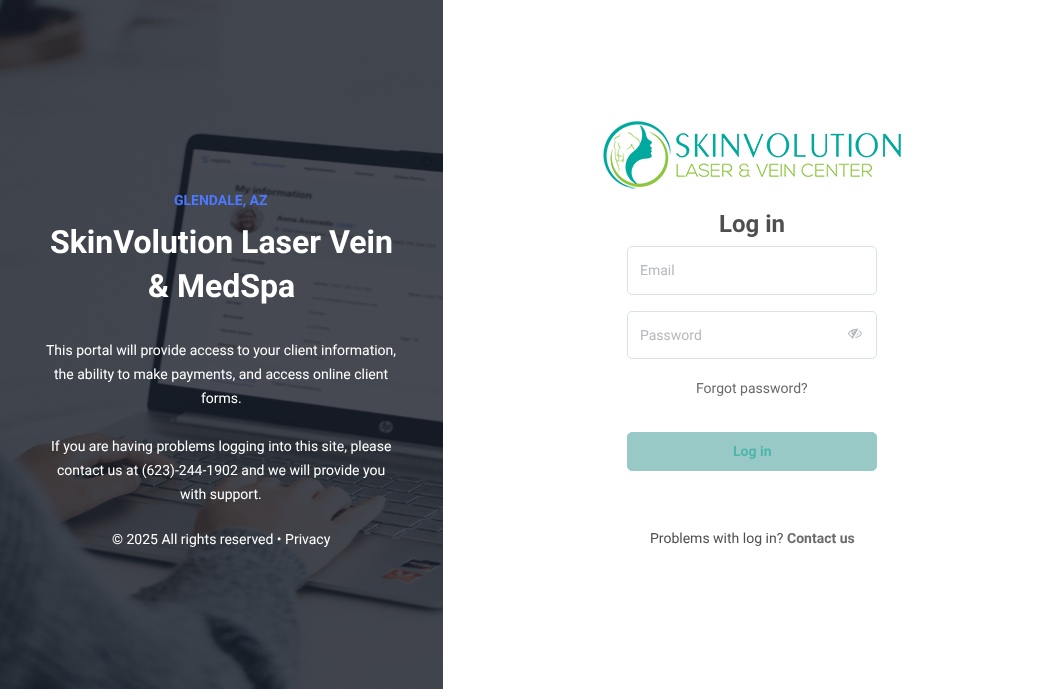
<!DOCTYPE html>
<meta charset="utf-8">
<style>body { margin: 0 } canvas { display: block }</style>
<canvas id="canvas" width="1062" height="689"></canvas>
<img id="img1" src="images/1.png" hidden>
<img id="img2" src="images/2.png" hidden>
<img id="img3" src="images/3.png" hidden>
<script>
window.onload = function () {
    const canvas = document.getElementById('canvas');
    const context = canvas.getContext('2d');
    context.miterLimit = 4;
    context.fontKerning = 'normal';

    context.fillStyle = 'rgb(255, 255, 255)';
    context.fillRect(0, 0, 1062, 689);
    context.drawImage(document.getElementById('img1'), 0, 0, 443, 689);
    context.drawImage(document.getElementById('img2'), 603, 121, 298, 68);
    context.beginPath();
    context.roundRect(627.5, 246.5, 249, 48, 4.5);
    context.strokeStyle = 'rgb(217, 225, 236)';
    context.stroke();
    context.beginPath();
    context.roundRect(627.5, 311.5, 249, 47, 4.5);
    context.stroke();
    context.drawImage(document.getElementById('img3'), 848, 328, 14, 11);
    context.fillStyle = 'rgb(153, 201, 199)';
    context.beginPath();
    context.roundRect(627.5, 432.5, 249, 38, 4.5);
    context.fill();
    context.strokeStyle = 'rgb(153, 201, 199)';
    context.stroke();
    context.font = 'bold 14px Roboto';
    context.fillStyle = 'rgb(76, 120, 255)';
    context.fillText('GLENDALE, AZ', 174, 205);
    context.font = 'bold 32px Roboto';
    context.fillStyle = 'rgb(255, 255, 255)';
    context.fillText('SkinVolution Laser Vein', 50, 253);
    context.fillText('& MedSpa', 148, 297);
    context.font = '14px Roboto';
    context.fillText('This portal will provide access to your client information,', 46, 355);
    context.fillText('the ability to make payments, and access online client', 54, 379);
    context.fillText('forms.', 201, 403);
    context.fillText('If you are having problems logging into this site, please', 51, 451);
    context.fillText('contact us at (623)-244-1902 and we will provide you', 57, 475);
    context.fillText('with support.', 180, 499);
    context.fillText('© 2025 All rights reserved • Privacy', 112, 544);
    context.font = 'bold 24px Roboto';
    context.fillStyle = 'rgb(79, 79, 79)';
    context.fillText('Log in', 719, 232);
    context.font = '14px Roboto';
    context.fillStyle = 'rgb(181, 184, 190)';
    context.fillText('Email', 640, 275);
    context.fillText('Password', 640, 340);
    context.fillStyle = 'rgb(107, 107, 107)';
    context.fillText('Forgot password?', 696, 393);
    context.font = 'bold 14px Roboto';
    context.fillStyle = 'rgb(77, 182, 172)';
    context.fillText('Log in', 733, 456);
    context.font = '14px Roboto';
    context.fillStyle = 'rgb(79, 79, 79)';
    context.fillText('Problems with log in?', 650, 543);
    context.font = 'bold 14px Roboto';
    context.fillStyle = 'rgb(107, 107, 107)';
    context.fillText('Contact us', 787, 543);
};
</script>
